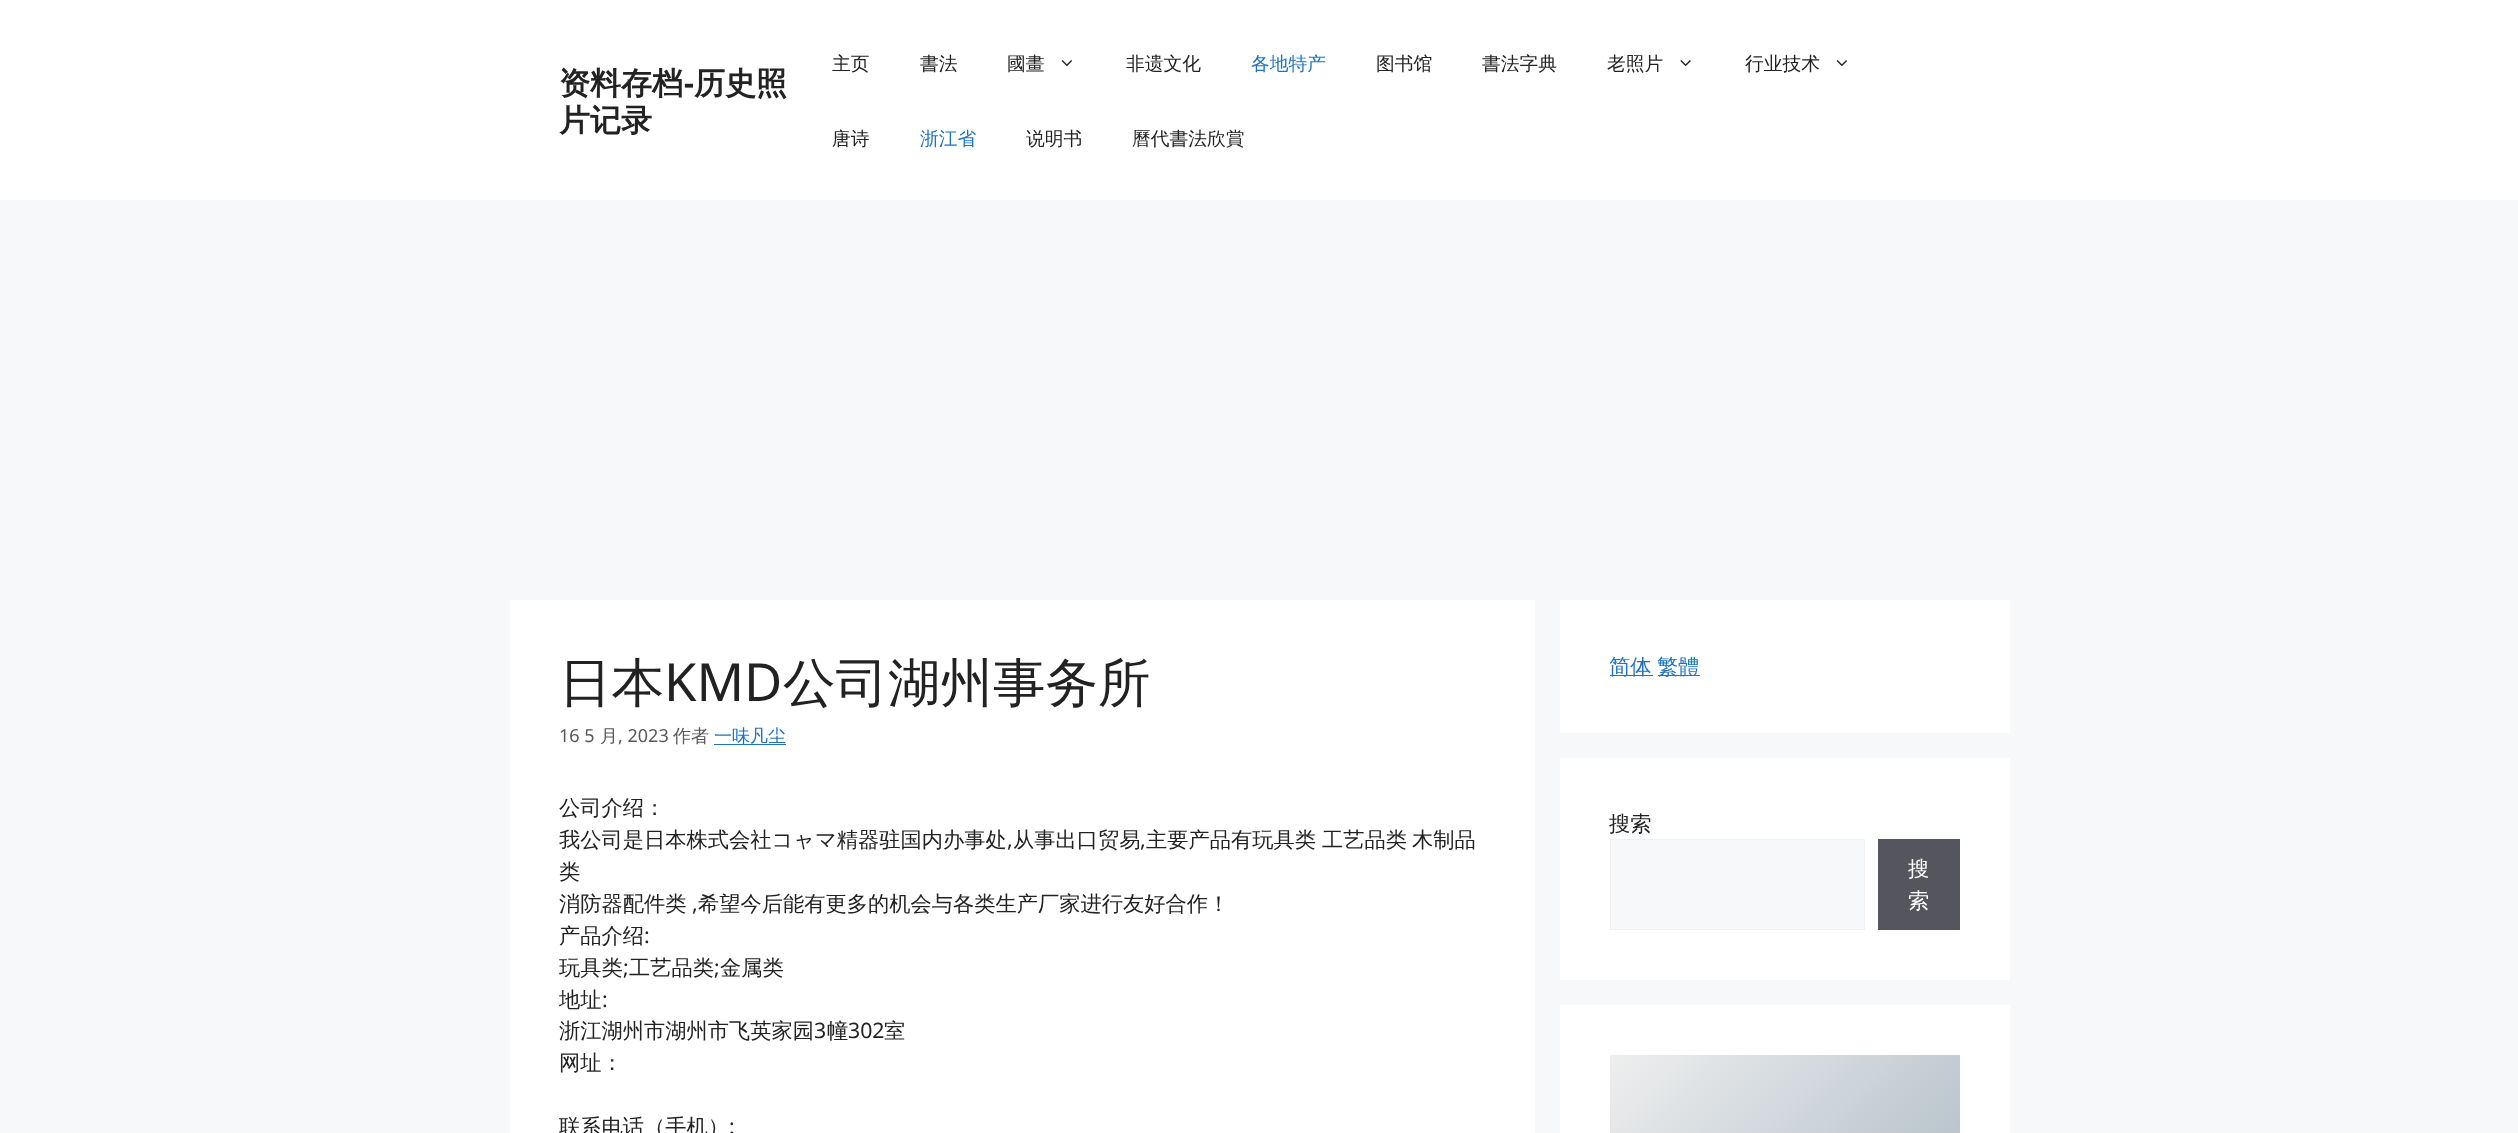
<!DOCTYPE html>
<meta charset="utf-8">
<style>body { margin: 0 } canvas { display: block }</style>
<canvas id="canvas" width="2518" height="1133"></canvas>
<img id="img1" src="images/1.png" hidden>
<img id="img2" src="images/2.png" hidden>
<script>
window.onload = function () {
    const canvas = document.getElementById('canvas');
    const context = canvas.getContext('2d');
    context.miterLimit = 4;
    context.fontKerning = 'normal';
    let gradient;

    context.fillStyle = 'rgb(247, 248, 249)';
    context.fillRect(0, 0, 2518, 1133);
    context.fillStyle = 'rgb(255, 255, 255)';
    context.fillRect(0, 0, 2518, 200);
    context.drawImage(document.getElementById('img1'), 1061, 60, 11, 7);
    context.drawImage(document.getElementById('img2'), 1680, 60, 11, 7);
    context.drawImage(document.getElementById('img1'), 1836, 60, 11, 7);
    context.fillRect(510, 600, 1025, 533);
    context.fillStyle = 'rgb(30, 115, 190)';
    context.fillRect(714, 744, 72, 1);
    context.fillStyle = 'rgb(255, 255, 255)';
    context.fillRect(1560, 600, 450, 133);
    context.fillStyle = 'rgb(30, 115, 190)';
    context.fillRect(1610, 675, 43, 1);
    context.fillRect(1658, 675, 42, 1);
    context.fillStyle = 'rgb(255, 255, 255)';
    context.fillRect(1560, 758, 450, 222);
    context.fillStyle = 'rgb(247, 248, 249)';
    context.beginPath();
    context.rect(1610.5, 839.5, 254, 90);
    context.fill();
    context.strokeStyle = 'rgb(240, 240, 240)';
    context.stroke();
    context.fillStyle = 'rgb(85, 85, 94)';
    context.fillRect(1878, 839, 82, 91);
    context.fillStyle = 'rgb(255, 255, 255)';
    context.fillRect(1560, 1005, 450, 128);
    gradient = context.createLinearGradient(1644, 1021, 1926, 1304);
    gradient.addColorStop(0, 'rgb(238, 238, 238)');
    gradient.addColorStop(1, 'rgb(169, 184, 195)');
    context.fillStyle = gradient;
    context.fillRect(1610, 1055, 350, 78);
    context.font = 'bold 31px WenQuanYi Zen Hei';
    context.fillStyle = 'rgb(34, 34, 34)';
    context.fillText('资料存档', 559, 94);
    context.font = 'bold 31px Noto Sans';
    context.fillText('-', 684, 94);
    context.font = 'bold 31px WenQuanYi Zen Hei';
    context.fillText('历史照', 694, 94);
    context.fillText('片记录', 559, 131);
    context.font = '500 18.75px WenQuanYi Zen Hei';
    context.fillText('主页', 832, 70);
    context.fillText('書法', 920, 70);
    context.fillText('國畫', 1007, 70);
    context.fillText('非遗文化', 1126, 70);
    context.fillStyle = 'rgb(30, 115, 190)';
    context.fillText('各地特产', 1251, 70);
    context.fillStyle = 'rgb(34, 34, 34)';
    context.fillText('图书馆', 1376, 70);
    context.fillText('書法字典', 1482, 70);
    context.fillText('老照片', 1607, 70);
    context.fillText('行业技术', 1745, 70);
    context.fillText('唐诗', 832, 145);
    context.fillStyle = 'rgb(30, 115, 190)';
    context.fillText('浙江省', 920, 145);
    context.fillStyle = 'rgb(34, 34, 34)';
    context.fillText('说明书', 1026, 145);
    context.fillText('曆代書法欣賞', 1132, 145);
    context.font = '500 52.5px WenQuanYi Zen Hei';
    context.fillText('日本', 559, 701);
    context.font = '52.5px Noto Sans';
    context.fillText('KMD', 664, 701);
    context.font = '500 52.5px WenQuanYi Zen Hei';
    context.fillText('公司湖州事务所', 783, 701);
    context.font = '18px Noto Sans';
    context.fillStyle = 'rgb(87, 87, 96)';
    context.fillText('16 5', 559, 742);
    context.font = '500 18px WenQuanYi Zen Hei';
    context.fillText('月', 600, 742);
    context.font = '18px Noto Sans';
    context.fillText(', 2023', 618, 742);
    context.font = '500 18px WenQuanYi Zen Hei';
    context.fillText('作者', 673, 742);
    context.fillStyle = 'rgb(30, 115, 190)';
    context.fillText('一味凡尘', 714, 742);
    context.font = '500 21.25px WenQuanYi Zen Hei';
    context.fillStyle = 'rgb(34, 34, 34)';
    context.fillText('公司介绍：', 559, 815);
    context.fillText('我公司是日本株式会社コャマ精器驻国内办事处', 559, 847);
    context.font = '21.25px Noto Sans';
    context.fillText(',', 1007, 847);
    context.font = '500 21.25px WenQuanYi Zen Hei';
    context.fillText('从事出口贸易', 1013, 847);
    context.font = '21.25px Noto Sans';
    context.fillText(',', 1140, 847);
    context.font = '500 21.25px WenQuanYi Zen Hei';
    context.fillText('主要产品有玩具类', 1146, 847);
    context.fillText('工艺品类', 1322, 847);
    context.fillText('木制品', 1412, 847);
    context.fillText('类', 559, 879);
    context.fillText('消防器配件类', 559, 911);
    context.font = '21.25px Noto Sans';
    context.fillText(',', 692, 911);
    context.font = '500 21.25px WenQuanYi Zen Hei';
    context.fillText('希望今后能有更多的机会与各类生产厂家进行友好合作！', 698, 911);
    context.fillText('产品介绍', 559, 943);
    context.font = '21.25px Noto Sans';
    context.fillText(':', 644, 943);
    context.font = '500 21.25px WenQuanYi Zen Hei';
    context.fillText('玩具类', 559, 975);
    context.font = '21.25px Noto Sans';
    context.fillText(';', 623, 975);
    context.font = '500 21.25px WenQuanYi Zen Hei';
    context.fillText('工艺品类', 629, 975);
    context.font = '21.25px Noto Sans';
    context.fillText(';', 714, 975);
    context.font = '500 21.25px WenQuanYi Zen Hei';
    context.fillText('金属类', 720, 975);
    context.fillText('地址', 559, 1007);
    context.font = '21.25px Noto Sans';
    context.fillText(':', 602, 1007);
    context.font = '500 21.25px WenQuanYi Zen Hei';
    context.fillText('浙江湖州市湖州市飞英家园', 559, 1038);
    context.font = '21.25px Noto Sans';
    context.fillText('3', 814, 1038);
    context.font = '500 21.25px WenQuanYi Zen Hei';
    context.fillText('幢', 827, 1038);
    context.font = '21.25px Noto Sans';
    context.fillText('302', 848, 1038);
    context.font = '500 21.25px WenQuanYi Zen Hei';
    context.fillText('室', 884, 1038);
    context.fillText('网址：', 559, 1070);
    context.fillText('联系电话（手机）', 559, 1134);
    context.font = '21.25px Noto Sans';
    context.fillText(':', 729, 1134);
    context.font = '500 21.25px WenQuanYi Zen Hei';
    context.fillStyle = 'rgb(30, 115, 190)';
    context.fillText('简体', 1609, 674);
    context.fillText('繁體', 1657, 674);
    context.fillStyle = 'rgb(34, 34, 34)';
    context.fillText('搜索', 1609, 831);
    context.fillStyle = 'rgb(255, 255, 255)';
    context.fillText('搜', 1908, 876);
    context.fillText('索', 1908, 908);
};
</script>
